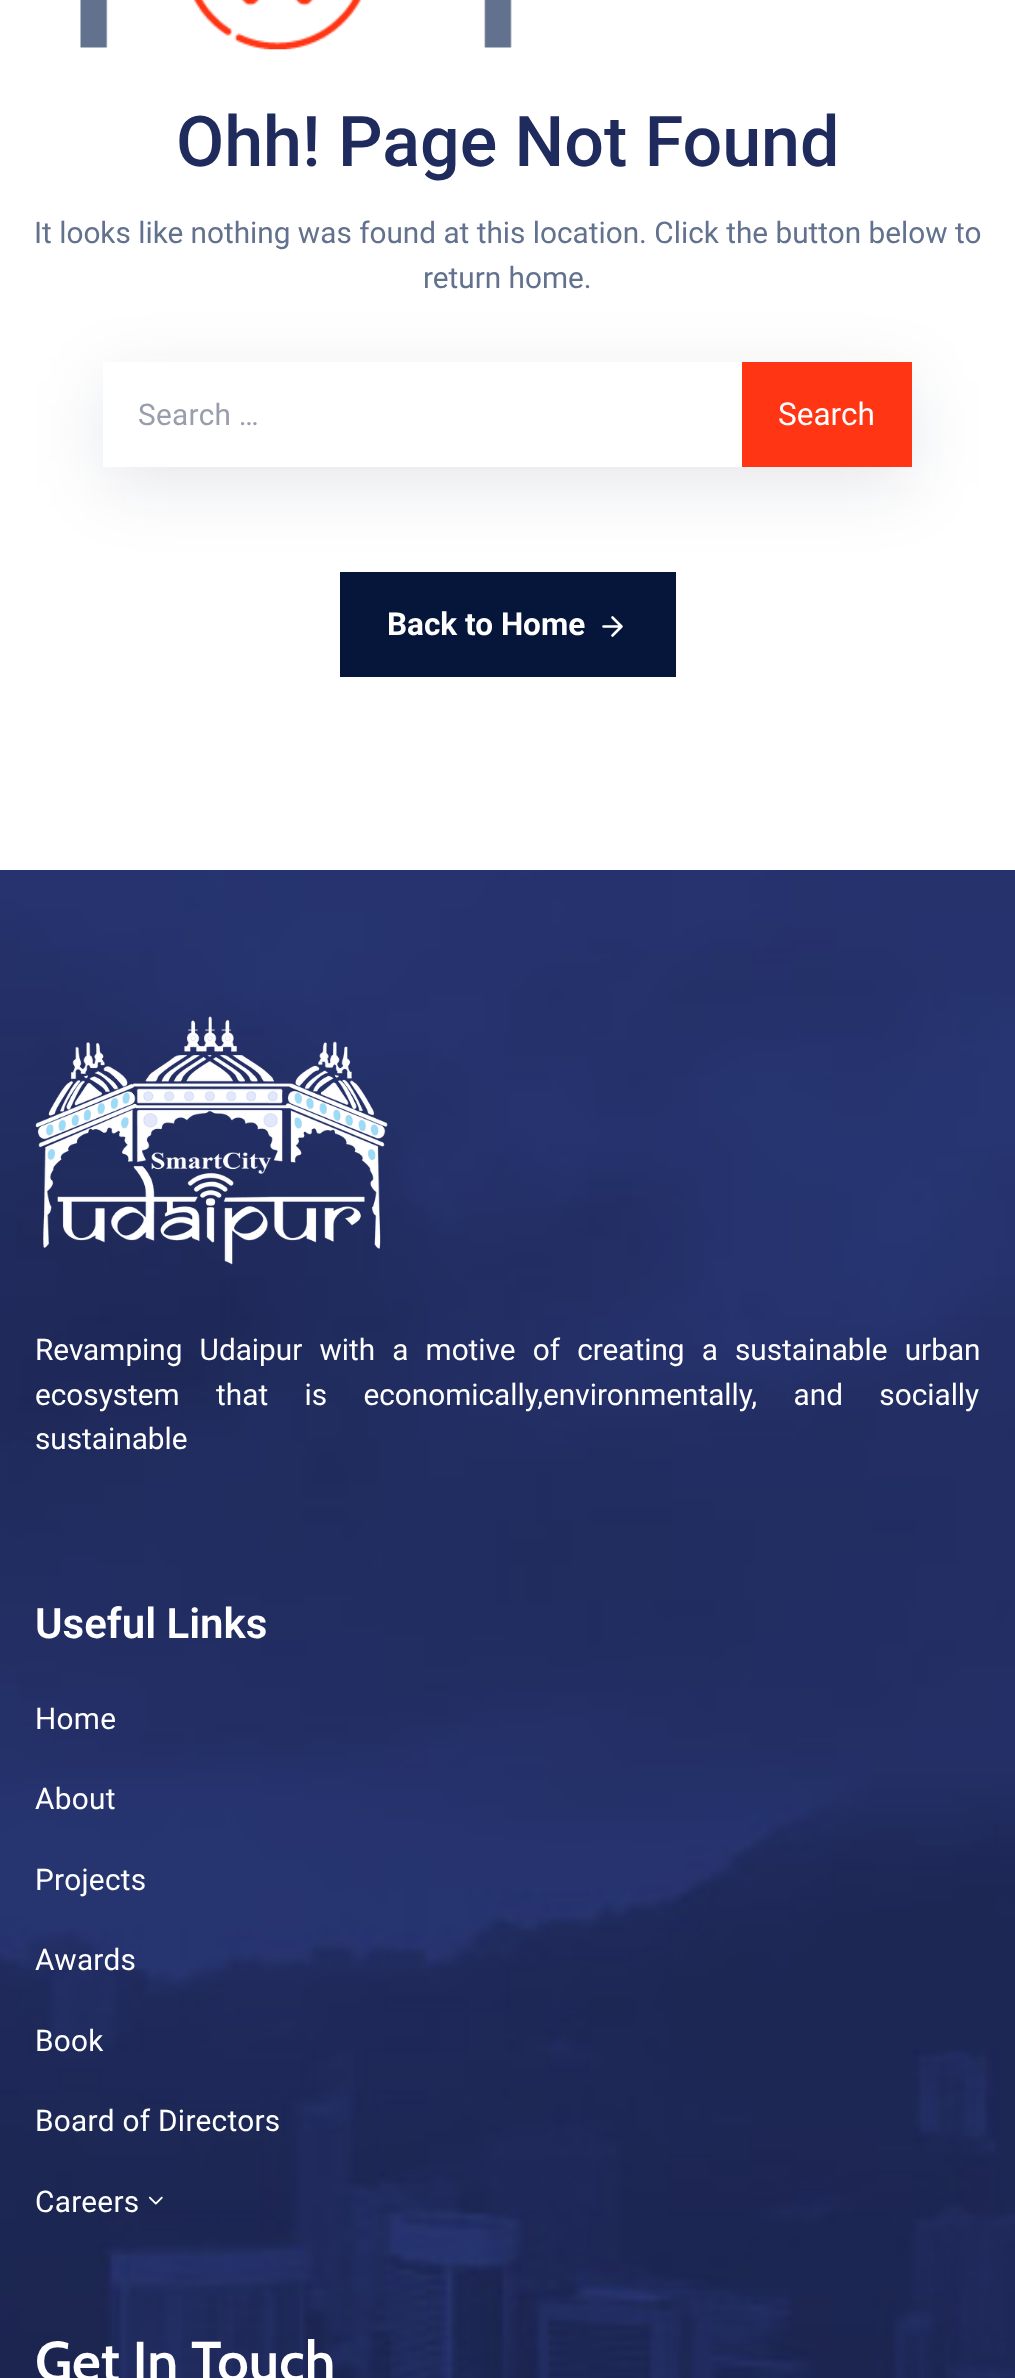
<!DOCTYPE html>
<meta charset="utf-8">
<style>body { margin: 0 } canvas { display: block }</style>
<canvas id="canvas" width="1015" height="2378"></canvas>
<img id="img1" src="images/1.png" hidden>
<img id="img2" src="images/2.png" hidden>
<img id="img3" src="images/3.png" hidden>
<img id="img4" src="images/4.png" hidden>
<script>
window.onload = function () {
    const canvas = document.getElementById('canvas');
    const context = canvas.getContext('2d');
    context.miterLimit = 4;
    context.fontKerning = 'normal';

    context.fillStyle = 'rgb(255, 255, 255)';
    context.fillRect(0, 0, 1015, 2378);
    context.drawImage(document.getElementById('img1'), 80, 0, 432, 50);
    context.fillStyle = 'rgba(6, 22, 58, 0.1)';
    context.filter = 'blur(35px)';
    context.beginPath();
    context.rect(103, 380, 809, 105);
    context.fill();
    context.filter = 'none';
    context.fillStyle = 'rgb(255, 255, 255)';
    context.fillRect(103, 362, 639, 105);
    context.fillStyle = 'rgb(255, 53, 20)';
    context.fillRect(742, 362, 170, 105);
    context.fillStyle = 'rgb(6, 22, 58)';
    context.fillRect(340, 572, 336, 105);
    context.beginPath();
    context.moveTo(603.5, 626.5);
    context.lineTo(621.5, 626.5);
    context.moveTo(612.5, 617.5);
    context.lineTo(621.5, 626.5);
    context.lineTo(612.5, 635.5);
    context.strokeStyle = 'rgb(255, 255, 255)';
    context.lineWidth = 2.6;
    context.lineCap = 'round';
    context.lineJoin = 'round';
    context.stroke();
    context.drawImage(document.getElementById('img2'), 0, 870, 1015, 1508);
    context.drawImage(document.getElementById('img3'), 35, 1016, 353, 249);
    context.drawImage(document.getElementById('img4'), 148, 2196, 15, 9);
    context.font = '500 70px Roboto';
    context.fillStyle = 'rgb(32, 43, 93)';
    context.fillText('Ohh! Page Not Found', 176, 166);
    context.font = '29.75px Roboto';
    context.fillStyle = 'rgb(98, 113, 141)';
    context.fillText('It looks like nothing was found at this location. Click the button below to', 34, 243);
    context.fillText('return home.', 423, 288);
    context.letterSpacing = '0.3px';
    context.fillStyle = 'rgb(153, 158, 172)';
    context.fillText('Search …', 138, 425);
    context.letterSpacing = '0px';
    context.font = '31.5px Roboto';
    context.fillStyle = 'rgb(255, 255, 255)';
    context.fillText('Search', 778, 425);
    context.font = 'bold 31.5px Roboto';
    context.fillText('Back to Home', 387, 635);
    context.wordSpacing = '9.75px';
    context.font = '29.75px Roboto';
    context.fillText('Revamping Udaipur with a motive of creating a sustainable urban', 35, 1360);
    context.wordSpacing = '29px';
    context.fillText('ecosystem that is economically,environmentally, and socially', 35, 1405);
    context.wordSpacing = '0px';
    context.fillText('sustainable', 35, 1449);
    context.font = '600 42px Roboto';
    context.fillText('Useful Links', 35, 1638);
    context.letterSpacing = '0.3px';
    context.font = '29.75px Roboto';
    context.fillText('Home', 35, 1729);
    context.fillText('About', 35, 1809);
    context.fillText('Projects', 35, 1890);
    context.fillText('Awards', 35, 1970);
    context.fillText('Book', 35, 2051);
    context.fillText('Board of Directors', 35, 2131);
    context.fillText('Careers', 35, 2212);
    context.letterSpacing = '0px';
    context.font = '600 56px Cabin';
    context.fillText('Get In Touch', 35, 2381);
};
</script>
